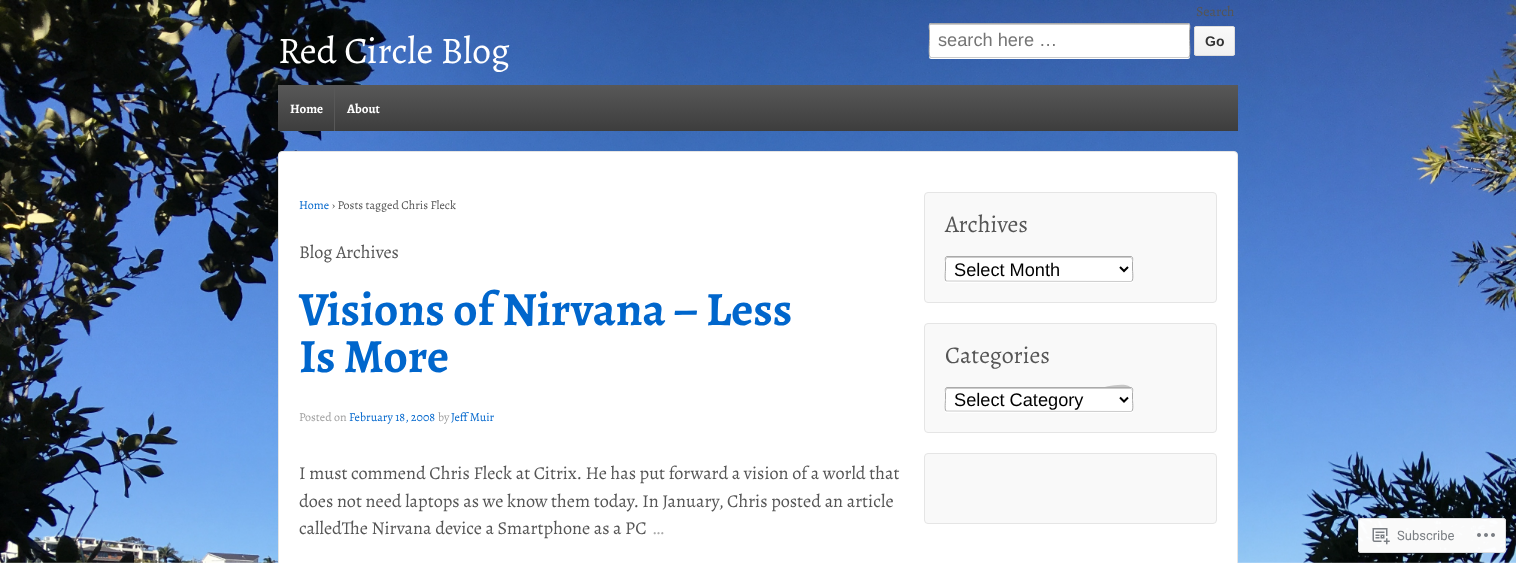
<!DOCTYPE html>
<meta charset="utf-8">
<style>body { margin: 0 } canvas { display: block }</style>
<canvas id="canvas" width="1516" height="563"></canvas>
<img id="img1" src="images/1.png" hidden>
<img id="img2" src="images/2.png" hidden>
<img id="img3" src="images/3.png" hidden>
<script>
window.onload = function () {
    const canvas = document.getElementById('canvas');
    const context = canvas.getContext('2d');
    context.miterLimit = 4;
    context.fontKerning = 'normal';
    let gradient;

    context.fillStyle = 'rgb(255, 255, 255)';
    context.fillRect(0, 0, 1516, 563);
    context.drawImage(document.getElementById('img1'), 0, 0, 1516, 563);
    context.beginPath();
    context.moveTo(929, 56);
    context.lineTo(929, 57);
    context.bezierCurveTo(929, 58, 930, 59, 931, 59);
    context.lineTo(1188, 59);
    context.bezierCurveTo(1189, 59, 1190, 58, 1190, 57);
    context.lineTo(1190, 56);
    context.bezierCurveTo(1190, 57, 1189, 58, 1188, 58);
    context.lineTo(931, 58);
    context.bezierCurveTo(930, 58, 929, 57, 929, 56);
    context.closePath();
    context.fill();
    context.beginPath();
    context.roundRect(929, 23, 261, 35, 2);
    context.fill();
    context.fillStyle = 'rgb(204, 204, 204)';
    context.beginPath();
    context.moveTo(931, 25);
    context.lineTo(1188, 25);
    context.bezierCurveTo(1189, 25, 1189, 25, 1189, 26);
    context.bezierCurveTo(1189, 25, 1189, 24, 1188, 24);
    context.lineTo(930, 24);
    context.lineTo(930, 26);
    context.bezierCurveTo(930, 25, 930, 25, 931, 25);
    context.closePath();
    context.fill();
    context.beginPath();
    context.moveTo(1189, 57);
    context.lineTo(1188, 57.5);
    context.lineTo(931, 57.5);
    context.lineTo(930, 57);
    context.strokeStyle = 'rgb(204, 204, 204)';
    context.stroke();
    context.beginPath();
    context.moveTo(930, 57);
    context.bezierCurveTo(928.5, 55.5, 929.5, 43, 929.5, 40.5);
    context.lineTo(929.5, 30);
    context.bezierCurveTo(929.5, 30, 928, 23.5, 931, 23.5);
    context.lineTo(1188, 23.5);
    context.bezierCurveTo(1191, 23.5, 1189.5, 30, 1189.5, 30);
    context.lineTo(1189.5, 40.5);
    context.bezierCurveTo(1189.5, 43, 1190.5, 55.5, 1189, 57);
    context.strokeStyle = 'rgb(170, 170, 170)';
    context.stroke();
    context.save();
    context.beginPath();
    context.roundRect(1194, 26, 41, 30, 2);
    context.clip();
    gradient = context.createLinearGradient(1215, 27, 1215, 55);
    gradient.addColorStop(0, 'rgb(249, 249, 249)');
    gradient.addColorStop(1, 'rgb(241, 241, 241)');
    context.fillStyle = gradient;
    context.fillRect(1194, 27, 41, 28);
    context.restore();
    context.fillStyle = 'rgb(251, 251, 251)';
    context.beginPath();
    context.moveTo(1196, 28);
    context.lineTo(1228.5, 28);
    context.bezierCurveTo(1230, 28, 1234, 27, 1234, 29);
    context.bezierCurveTo(1234, 25.5, 1230, 27, 1227, 27);
    context.lineTo(1202, 27);
    context.bezierCurveTo(1198.5, 27, 1195, 25.5, 1195, 29);
    context.closePath();
    context.fill();
    context.beginPath();
    context.roundRect(1194.5, 26.5, 40, 29, 1.5);
    context.strokeStyle = 'rgb(221, 221, 221)';
    context.stroke();
    gradient = context.createLinearGradient(758, 85, 758, 131);
    gradient.addColorStop(0, 'rgb(88, 88, 88)');
    gradient.addColorStop(1, 'rgb(61, 61, 61)');
    context.fillStyle = gradient;
    context.fillRect(278, 85, 960, 46);
    context.fillStyle = 'rgb(88, 88, 88)';
    context.fillRect(334, 85, 1, 46);
    context.fillStyle = 'rgb(255, 255, 255)';
    context.beginPath();
    context.roundRect(278.5, 151.5, 959, 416, 3.5);
    context.fill();
    context.strokeStyle = 'rgb(229, 229, 229)';
    context.stroke();
    context.fillStyle = 'rgb(249, 249, 249)';
    context.beginPath();
    context.roundRect(924.5, 192.5, 292, 110, 3.5);
    context.fill();
    context.stroke();
    context.fillStyle = 'rgb(255, 255, 255)';
    context.beginPath();
    context.moveTo(945, 280);
    context.lineTo(945, 281);
    context.bezierCurveTo(945, 282, 946, 283, 947, 283);
    context.lineTo(1131, 283);
    context.bezierCurveTo(1132, 283, 1133, 282, 1133, 281);
    context.lineTo(1133, 280);
    context.bezierCurveTo(1133, 281, 1132, 282, 1131, 282);
    context.lineTo(947, 282);
    context.bezierCurveTo(946, 282, 945, 281, 945, 280);
    context.closePath();
    context.fill();
    context.beginPath();
    context.roundRect(945, 256, 188, 26, 2);
    context.fill();
    context.fillStyle = 'rgb(204, 204, 204)';
    context.beginPath();
    context.moveTo(947, 258);
    context.lineTo(1131, 258);
    context.lineTo(1132, 260);
    context.bezierCurveTo(1132, 259, 1132, 258, 1131, 257);
    context.lineTo(947, 257);
    context.bezierCurveTo(945, 258, 946, 260, 946, 260);
    context.closePath();
    context.fill();
    context.beginPath();
    context.moveTo(1132, 281);
    context.lineTo(1131, 281.5);
    context.lineTo(946, 281);
    context.strokeStyle = 'rgb(204, 204, 204)';
    context.stroke();
    context.beginPath();
    context.moveTo(946, 281);
    context.bezierCurveTo(944.5, 279.5, 945.5, 271, 945.5, 269);
    context.lineTo(945.5, 261.5);
    context.bezierCurveTo(945.5, 261, 944.5, 256.5, 947, 256.5);
    context.lineTo(1131, 256.5);
    context.bezierCurveTo(1133.5, 256.5, 1132.5, 261, 1132.5, 261.5);
    context.lineTo(1132.5, 269);
    context.bezierCurveTo(1132.5, 271, 1133.5, 279.5, 1132, 281);
    context.strokeStyle = 'rgb(170, 170, 170)';
    context.stroke();
    context.beginPath();
    context.moveTo(1120, 267);
    context.lineTo(1124, 271);
    context.lineTo(1128, 267);
    context.strokeStyle = 'rgb(0, 0, 0)';
    context.lineWidth = 2;
    context.stroke();
    context.fillStyle = 'rgb(249, 249, 249)';
    context.beginPath();
    context.roundRect(924.5, 323.5, 292, 109, 3.5);
    context.fill();
    context.strokeStyle = 'rgb(229, 229, 229)';
    context.lineWidth = 1;
    context.stroke();
    context.fillStyle = 'rgb(255, 255, 255)';
    context.beginPath();
    context.moveTo(945, 410);
    context.lineTo(945, 411);
    context.bezierCurveTo(945, 412, 946, 413, 947, 413);
    context.lineTo(1131, 413);
    context.bezierCurveTo(1132, 413, 1133, 412, 1133, 411);
    context.lineTo(1133, 410);
    context.bezierCurveTo(1133, 411, 1132, 412, 1131, 412);
    context.lineTo(947, 412);
    context.bezierCurveTo(946, 412, 945, 411, 945, 410);
    context.closePath();
    context.fill();
    context.beginPath();
    context.roundRect(945, 387, 188, 25, 2);
    context.fill();
    context.fillStyle = 'rgba(0, 0, 0, 0.2)';
    context.beginPath();
    context.moveTo(947, 389);
    context.lineTo(1131, 389);
    context.lineTo(1132, 391);
    context.bezierCurveTo(1132, 379, 1102, 388, 1100, 388);
    context.lineTo(946, 388);
    context.lineTo(946, 391);
    context.closePath();
    context.fill();
    context.beginPath();
    context.moveTo(1132, 411);
    context.lineTo(1131, 411.5);
    context.lineTo(946, 411);
    context.strokeStyle = 'rgb(204, 204, 204)';
    context.stroke();
    context.beginPath();
    context.moveTo(946, 411);
    context.bezierCurveTo(944.5, 409.5, 945.5, 401.5, 945.5, 399.5);
    context.lineTo(945.5, 392.5);
    context.bezierCurveTo(945.5, 391.5, 944.5, 387.5, 947, 387.5);
    context.lineTo(1131, 387.5);
    context.bezierCurveTo(1133.5, 387.5, 1132.5, 391.5, 1132.5, 392.5);
    context.lineTo(1132.5, 399.5);
    context.bezierCurveTo(1132.5, 401.5, 1133.5, 409.5, 1132, 411);
    context.strokeStyle = 'rgb(170, 170, 170)';
    context.stroke();
    context.beginPath();
    context.moveTo(1120, 397.5);
    context.lineTo(1124, 401.5);
    context.lineTo(1128, 397.5);
    context.strokeStyle = 'rgb(0, 0, 0)';
    context.lineWidth = 2;
    context.stroke();
    context.fillStyle = 'rgb(249, 249, 249)';
    context.beginPath();
    context.roundRect(924.5, 453.5, 292, 70, 3.5);
    context.fill();
    context.strokeStyle = 'rgb(229, 229, 229)';
    context.lineWidth = 1;
    context.stroke();
    context.fillStyle = 'rgba(255, 255, 255, 0.98)';
    context.beginPath();
    context.roundRect(1358, 518, 148, 35, 3);
    context.fill();
    context.beginPath();
    context.roundRect(1358.5, 518.5, 147, 34, 2.5);
    context.strokeStyle = 'rgba(220, 220, 222, 0.98)';
    context.stroke();
    context.drawImage(document.getElementById('img2'), 1372, 528, 18, 17);
    context.drawImage(document.getElementById('img3'), 1477, 533, 18, 4);
    context.font = '14px Alegreya';
    context.fillStyle = 'rgb(85, 85, 85)';
    context.fillText('Search', 1196, 16);
    context.font = '18.2px Liberation Sans';
    context.fillStyle = 'rgb(117, 117, 117)';
    context.fillText('search here …', 938, 46);
    context.font = 'bold 14px Liberation Sans';
    context.fillStyle = 'rgb(51, 51, 51)';
    context.fillText('Go', 1205, 46);
    context.font = '37.5px Alegreya';
    context.fillStyle = 'rgb(255, 255, 255)';
    context.fillText('Red Circle Blog', 278, 63);
    context.font = 'bold 13px Alegreya';
    context.fillText('Home', 290, 113);
    context.fillText('About', 347, 113);
    context.font = '12px Alegreya';
    context.fillStyle = 'rgb(0, 102, 204)';
    context.fillText('Home', 299, 209);
    context.fillStyle = 'rgb(85, 85, 85)';
    context.fillText('› Posts tagged Chris Fleck', 332, 209);
    context.font = '18.2px Alegreya';
    context.fillText('Blog Archives', 299, 258);
    context.font = 'bold 47.75px Alegreya';
    context.fillStyle = 'rgb(0, 102, 204)';
    context.fillText('Visions of Nirvana – Less', 299, 325);
    context.fillText('Is More', 299, 372);
    context.font = '12px Alegreya';
    context.fillStyle = 'rgb(159, 159, 159)';
    context.fillText('Posted on', 299, 421);
    context.fillStyle = 'rgb(0, 102, 204)';
    context.fillText('February 18, 2008', 349, 421);
    context.fillStyle = 'rgb(159, 159, 159)';
    context.fillText('by', 438, 421);
    context.fillStyle = 'rgb(0, 102, 204)';
    context.fillText('Jeff Muir', 451, 421);
    context.font = '18.2px Alegreya';
    context.fillStyle = 'rgb(85, 85, 85)';
    context.fillText('I must commend Chris Fleck at Citrix. He has put forward a vision of a world that', 299, 479);
    context.fillText('does not need laptops as we know them today. In January, Chris posted an article', 299, 507);
    context.fillText('calledThe Nirvana device a Smartphone as a PC', 299, 534);
    context.font = '18px Alegreya';
    context.fillStyle = 'rgb(170, 170, 170)';
    context.fillText('…', 652, 534);
    context.font = '24px Alegreya';
    context.fillStyle = 'rgb(85, 85, 85)';
    context.fillText('Archives', 945, 232);
    context.font = '18.2px Liberation Sans';
    context.fillStyle = 'rgb(0, 0, 0)';
    context.fillText('Select Month', 954, 276);
    context.font = '24px Alegreya';
    context.fillStyle = 'rgb(85, 85, 85)';
    context.fillText('Categories', 945, 363);
    context.font = '18.2px Liberation Sans';
    context.fillStyle = 'rgb(0, 0, 0)';
    context.fillText('Select Category', 954, 406);
    context.font = '13px Roboto';
    context.fillStyle = 'rgb(123, 127, 132)';
    context.fillText('Subscribe', 1397, 540);
};
</script>
